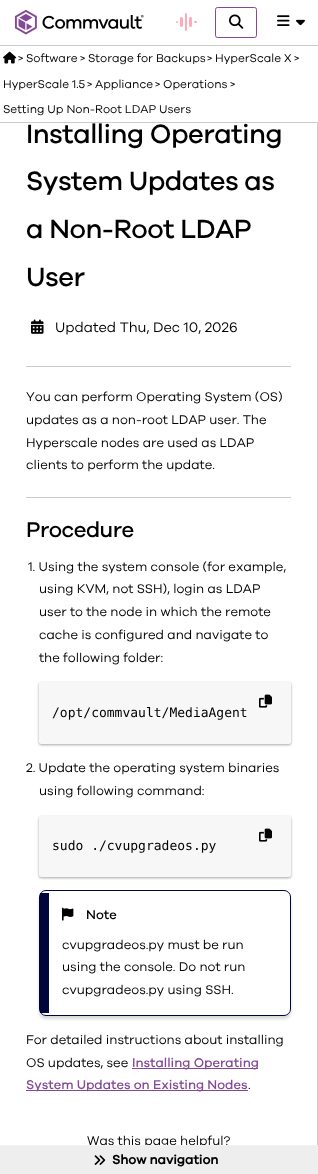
<!DOCTYPE html>
<meta charset="utf-8">
<style>body { margin: 0 } canvas { display: block }</style>
<canvas id="canvas" width="318" height="1174"></canvas>
<img id="img1" src="images/1.png" hidden>
<img id="img2" src="images/2.png" hidden>
<img id="img3" src="images/3.png" hidden>
<img id="img4" src="images/4.png" hidden>
<img id="img5" src="images/5.png" hidden>
<img id="img6" src="images/6.png" hidden>
<img id="img7" src="images/7.png" hidden>
<img id="img8" src="images/8.png" hidden>
<img id="img9" src="images/9.png" hidden>
<img id="img10" src="images/10.png" hidden>
<script>
window.onload = function () {
    const canvas = document.getElementById('canvas');
    const context = canvas.getContext('2d');
    context.miterLimit = 4;
    context.fontKerning = 'normal';

    context.fillStyle = 'rgb(255, 255, 255)';
    context.fillRect(0, 0, 318, 1174);
    context.fillStyle = 'rgb(204, 204, 204)';
    context.fillRect(0, 45, 318, 1);
    context.drawImage(document.getElementById('img1'), 14, 9, 130, 26);
    context.drawImage(document.getElementById('img2'), 176, 13, 21, 18);
    context.beginPath();
    context.roundRect(215.5, 7.5, 41, 30, 2);
    context.strokeStyle = 'rgb(132, 72, 150)';
    context.stroke();
    context.drawImage(document.getElementById('img3'), 229, 14, 15, 15);
    context.drawImage(document.getElementById('img4'), 277, 15, 13, 11);
    context.drawImage(document.getElementById('img5'), 296, 19, 9, 7);
    context.fillRect(317, 123, 1, 1022);
    context.fillRect(0, 122, 318, 1);
    context.drawImage(document.getElementById('img6'), 3, 51, 14, 13);
    context.drawImage(document.getElementById('img7'), 31, 319, 13, 15);
    context.fillRect(26, 366, 265, 1);
    context.fillRect(26, 497, 265, 1);
    context.save();
    context.beginPath();
    context.moveTo(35, 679);
    context.lineTo(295, 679);
    context.lineTo(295, 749);
    context.lineTo(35, 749);
    context.closePath();
    context.moveTo(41.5, 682);
    context.lineTo(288.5, 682);
    context.bezierCurveTo(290, 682, 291, 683, 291, 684.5);
    context.lineTo(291, 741.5);
    context.bezierCurveTo(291, 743, 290, 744, 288.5, 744);
    context.lineTo(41.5, 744);
    context.bezierCurveTo(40, 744, 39, 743, 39, 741.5);
    context.lineTo(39, 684.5);
    context.bezierCurveTo(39, 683, 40, 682, 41.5, 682);
    context.closePath();
    context.clip('evenodd');
    context.fillStyle = 'rgba(0, 0, 0, 0.24)';
    context.filter = 'blur(1px)';
    context.beginPath();
    context.roundRect(39, 683, 252, 62, 2.5);
    context.fill();
    context.filter = 'none';
    context.restore();
    context.save();
    context.beginPath();
    context.moveTo(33, 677);
    context.lineTo(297, 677);
    context.lineTo(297, 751);
    context.lineTo(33, 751);
    context.closePath();
    context.moveTo(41.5, 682);
    context.lineTo(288.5, 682);
    context.bezierCurveTo(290, 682, 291, 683, 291, 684.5);
    context.lineTo(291, 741.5);
    context.bezierCurveTo(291, 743, 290, 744, 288.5, 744);
    context.lineTo(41.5, 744);
    context.bezierCurveTo(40, 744, 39, 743, 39, 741.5);
    context.lineTo(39, 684.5);
    context.bezierCurveTo(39, 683, 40, 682, 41.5, 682);
    context.closePath();
    context.clip('evenodd');
    context.fillStyle = 'rgba(0, 0, 0, 0.12)';
    context.filter = 'blur(1.5px)';
    context.beginPath();
    context.roundRect(39, 683, 252, 62, 2.5);
    context.fill();
    context.filter = 'none';
    context.restore();
    context.fillStyle = 'rgba(234, 234, 234, 0.4)';
    context.beginPath();
    context.roundRect(39, 682, 252, 62, 2.5);
    context.fill();
    context.drawImage(document.getElementById('img8'), 259, 694, 13, 14);
    context.save();
    context.beginPath();
    context.moveTo(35, 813);
    context.lineTo(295, 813);
    context.lineTo(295, 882);
    context.lineTo(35, 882);
    context.closePath();
    context.moveTo(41.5, 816);
    context.lineTo(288.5, 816);
    context.bezierCurveTo(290, 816, 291, 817, 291, 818.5);
    context.lineTo(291, 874.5);
    context.bezierCurveTo(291, 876, 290, 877, 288.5, 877);
    context.lineTo(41.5, 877);
    context.bezierCurveTo(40, 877, 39, 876, 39, 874.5);
    context.lineTo(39, 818.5);
    context.bezierCurveTo(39, 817, 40, 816, 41.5, 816);
    context.closePath();
    context.clip('evenodd');
    context.fillStyle = 'rgba(0, 0, 0, 0.24)';
    context.filter = 'blur(1px)';
    context.beginPath();
    context.roundRect(39, 817, 252, 61, 2.5);
    context.fill();
    context.filter = 'none';
    context.restore();
    context.save();
    context.beginPath();
    context.moveTo(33, 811);
    context.lineTo(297, 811);
    context.lineTo(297, 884);
    context.lineTo(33, 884);
    context.closePath();
    context.moveTo(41.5, 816);
    context.lineTo(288.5, 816);
    context.bezierCurveTo(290, 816, 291, 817, 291, 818.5);
    context.lineTo(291, 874.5);
    context.bezierCurveTo(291, 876, 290, 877, 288.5, 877);
    context.lineTo(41.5, 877);
    context.bezierCurveTo(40, 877, 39, 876, 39, 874.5);
    context.lineTo(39, 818.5);
    context.bezierCurveTo(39, 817, 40, 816, 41.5, 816);
    context.closePath();
    context.clip('evenodd');
    context.fillStyle = 'rgba(0, 0, 0, 0.12)';
    context.filter = 'blur(1.5px)';
    context.beginPath();
    context.roundRect(39, 817, 252, 61, 2.5);
    context.fill();
    context.filter = 'none';
    context.restore();
    context.beginPath();
    context.roundRect(39, 816, 252, 61, 2.5);
    context.fill();
    context.drawImage(document.getElementById('img8'), 259, 828, 13, 14);
    context.save();
    context.beginPath();
    context.moveTo(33, 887);
    context.lineTo(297, 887);
    context.lineTo(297, 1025);
    context.lineTo(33, 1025);
    context.closePath();
    context.moveTo(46, 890);
    context.lineTo(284, 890);
    context.bezierCurveTo(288, 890, 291, 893, 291, 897);
    context.lineTo(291, 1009);
    context.bezierCurveTo(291, 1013, 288, 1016, 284, 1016);
    context.lineTo(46, 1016);
    context.bezierCurveTo(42, 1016, 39, 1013, 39, 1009);
    context.lineTo(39, 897);
    context.bezierCurveTo(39, 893, 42, 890, 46, 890);
    context.closePath();
    context.clip('evenodd');
    context.fillStyle = 'rgba(0, 0, 0, 0.15)';
    context.filter = 'blur(1.5px)';
    context.beginPath();
    context.roundRect(39, 893, 252, 126, 7);
    context.fill();
    context.filter = 'none';
    context.restore();
    context.beginPath();
    context.roundRect(39.5, 890.5, 251, 125, 6.5);
    context.strokeStyle = 'rgb(0, 5, 59)';
    context.stroke();
    context.fillStyle = 'rgb(0, 5, 59)';
    context.fillRect(40, 893, 9, 120);
    context.drawImage(document.getElementById('img9'), 62, 907, 12, 14);
    context.fillStyle = 'rgb(132, 72, 150)';
    context.fillRect(132, 1068, 126, 1);
    context.fillRect(26, 1090, 222, 1);
    context.font = '11.75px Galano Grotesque';
    context.fillStyle = 'rgb(0, 0, 0)';
    context.fillText('>', 18, 62);
    context.fillText('Software', 26, 62);
    context.fillText('>', 80, 62);
    context.fillText('Storage for Backups', 88, 62);
    context.fillText('>', 207, 62);
    context.fillText('HyperScale X', 215, 62);
    context.fillText('>', 294, 62);
    context.fillText('HyperScale 1.5', 3, 88);
    context.fillText('>', 87, 88);
    context.fillText('Appliance', 95, 88);
    context.fillText('>', 155, 88);
    context.fillText('Operations', 163, 88);
    context.fillText('>', 230, 88);
    context.fillText('Setting Up Non-Root LDAP Users', 3, 113);
    context.letterSpacing = '-0.5px';
    context.font = '500 27.25px Galano Grotesque';
    context.fillText('Installing Operating', 26, 143);
    context.fillText('System Updates as', 26, 190);
    context.fillText('a Non-Root LDAP', 26, 238);
    context.fillText('User', 26, 286);
    context.letterSpacing = '0px';
    context.font = '14.25px Galano Grotesque';
    context.fillText('Updated Thu, Dec 10, 2026', 55, 332);
    context.font = '13px Galano Grotesque';
    context.fillText('You can perform Operating System (OS)', 26, 401);
    context.fillText('updates as a non-root LDAP user. The', 26, 424);
    context.fillText('Hyperscale nodes are used as LDAP', 26, 447);
    context.fillText('clients to perform the update.', 26, 469);
    context.letterSpacing = '-0.5px';
    context.font = '500 22px Galano Grotesque';
    context.fillText('Procedure', 26, 537);
    context.letterSpacing = '0px';
    context.font = '13px Galano Grotesque';
    context.fillText('1. Using the system console (for example,', 28, 571);
    context.fillText('using KVM, not SSH), login as LDAP', 39, 593);
    context.fillText('user to the node in which the remote', 39, 616);
    context.fillText('cache is configured and navigate to', 39, 639);
    context.fillText('the following folder:', 39, 662);
    context.font = '13px DejaVu Sans Mono';
    context.fillText('/opt/commvault/MediaAgent', 52, 717);
    context.font = '13px Galano Grotesque';
    context.fillText('2. Update the operating system binaries', 26, 772);
    context.fillText('using following command:', 39, 795);
    context.font = '13px DejaVu Sans Mono';
    context.fillText('sudo ./cvupgradeos.py', 52, 850);
    context.font = '500 13px Galano Grotesque';
    context.fillText('Note', 86, 919);
    context.font = '13px Galano Grotesque';
    context.fillText('cvupgradeos.py must be run', 62, 949);
    context.fillText('using the console. Do not run', 62, 971);
    context.fillText('cvupgradeos.py using SSH.', 62, 994);
    context.fillText('For detailed instructions about installing', 26, 1044);
    context.fillText('OS updates, see', 26, 1067);
    context.font = '500 13px Galano Grotesque';
    context.fillStyle = 'rgb(132, 72, 150)';
    context.fillText('Installing Operating', 132, 1067);
    context.fillText('System Updates on Existing Nodes', 26, 1089);
    context.font = '13px Galano Grotesque';
    context.fillStyle = 'rgb(0, 0, 0)';
    context.fillText('.', 248, 1089);
    context.fillText('Was this page helpful?', 87, 1145);
    context.fillStyle = 'rgb(242, 242, 242)';
    context.fillRect(0, 1145, 318, 1);
    context.fillStyle = 'rgb(238, 238, 238)';
    context.fillRect(0, 1146, 318, 28);
    context.drawImage(document.getElementById('img10'), 94, 1155, 12, 10);
    context.font = 'bold 13px Galano Grotesque';
    context.fillStyle = 'rgb(0, 0, 0)';
    context.fillText('Show navigation', 112, 1164);
};
</script>
